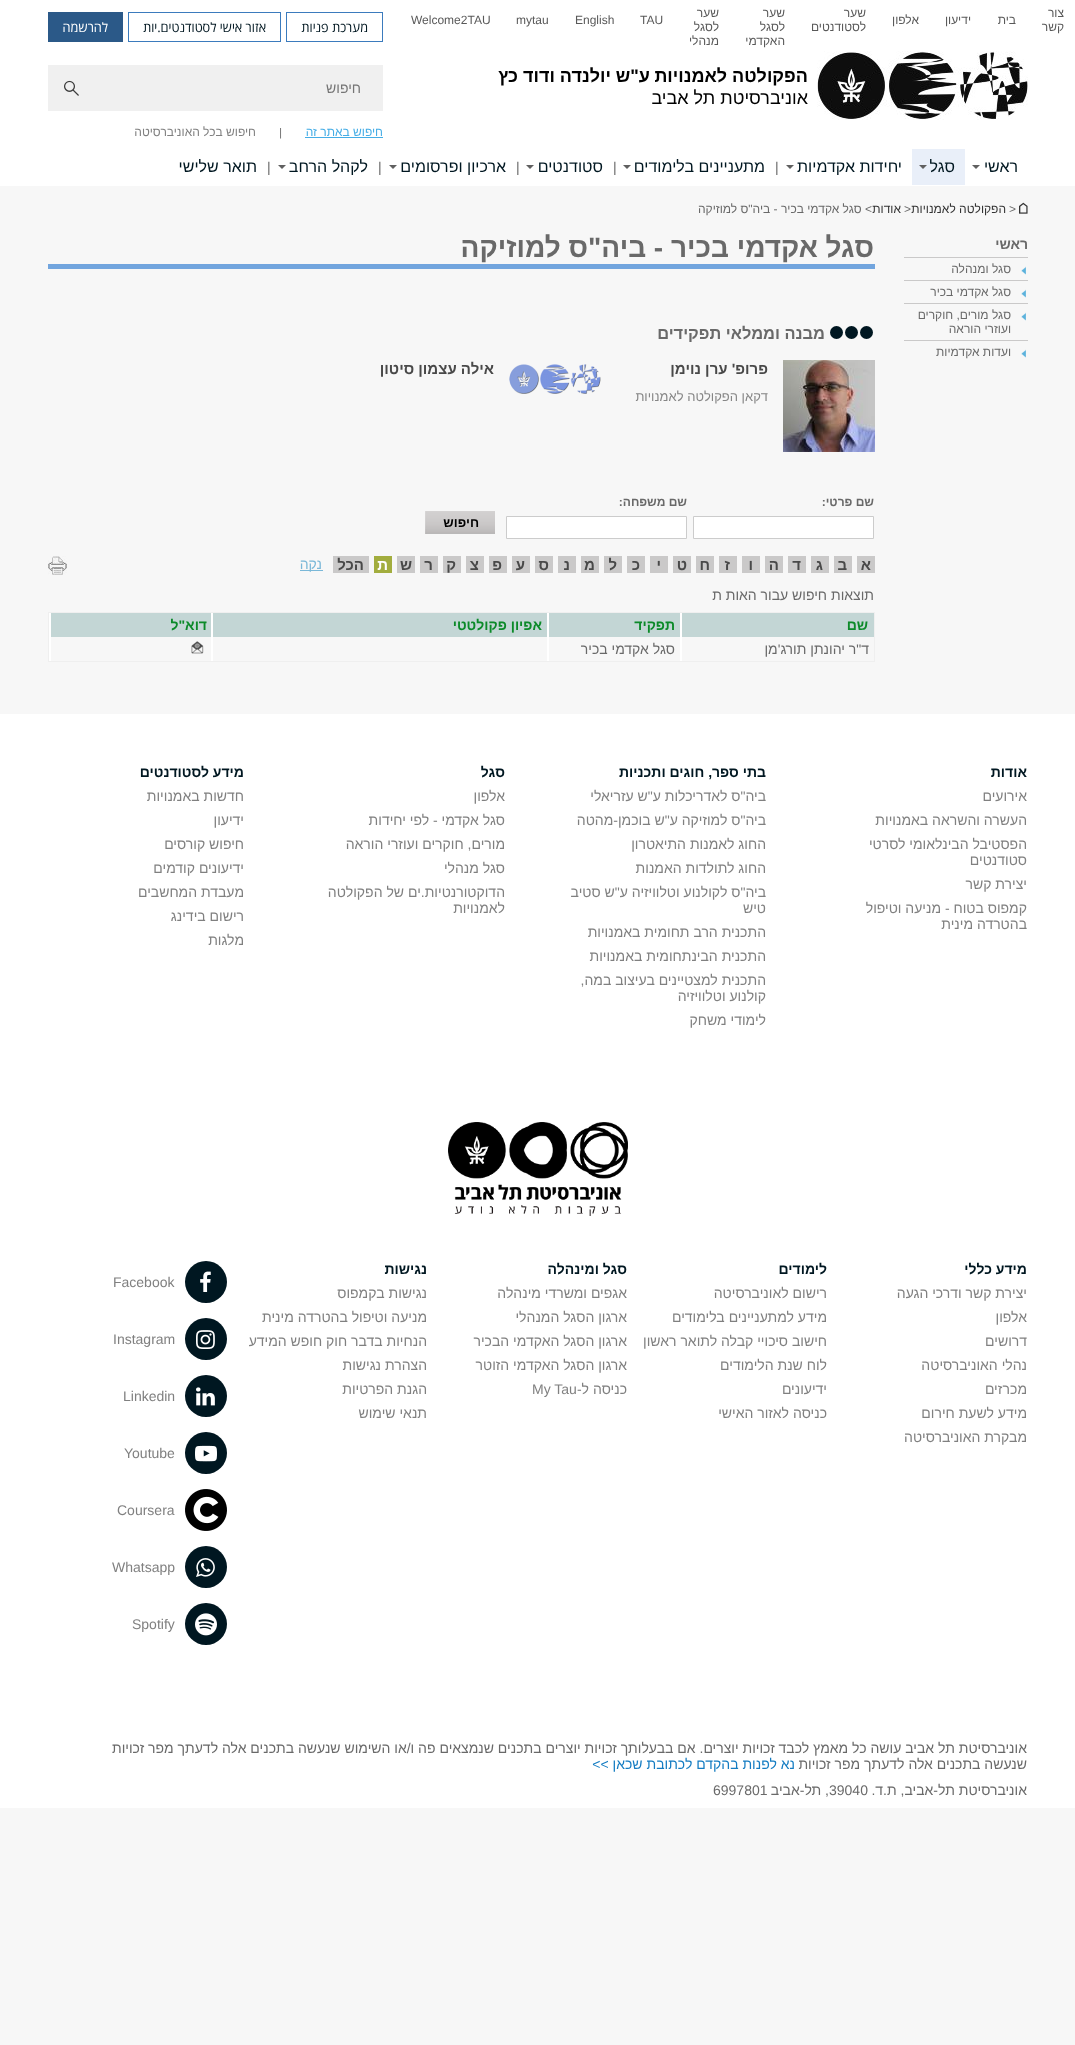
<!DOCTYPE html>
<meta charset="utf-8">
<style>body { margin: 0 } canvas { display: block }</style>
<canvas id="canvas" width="1075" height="2045"></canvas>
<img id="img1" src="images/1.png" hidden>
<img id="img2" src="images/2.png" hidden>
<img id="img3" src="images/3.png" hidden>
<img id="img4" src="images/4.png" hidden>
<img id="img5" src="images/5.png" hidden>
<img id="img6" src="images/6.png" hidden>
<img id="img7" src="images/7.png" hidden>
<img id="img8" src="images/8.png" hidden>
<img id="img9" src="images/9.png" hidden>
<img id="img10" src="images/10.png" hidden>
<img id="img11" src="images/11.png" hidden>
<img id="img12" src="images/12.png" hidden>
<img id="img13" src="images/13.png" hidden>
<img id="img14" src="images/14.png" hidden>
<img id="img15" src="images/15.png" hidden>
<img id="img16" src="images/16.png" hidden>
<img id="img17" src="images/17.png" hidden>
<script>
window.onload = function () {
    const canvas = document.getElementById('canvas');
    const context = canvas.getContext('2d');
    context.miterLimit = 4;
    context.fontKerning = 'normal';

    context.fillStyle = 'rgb(247, 247, 247)';
    context.fillRect(0, 0, 1075, 2045);
    context.fillStyle = 'rgb(255, 255, 255)';
    context.fillRect(0, 0, 1075, 186);
    context.strokeStyle = 'rgb(59, 123, 189)';
    context.strokeRect(286.5, 12.5, 96, 29);
    context.strokeRect(128.5, 12.5, 152, 29);
    context.fillStyle = 'rgb(43, 89, 136)';
    context.fillRect(48, 12, 75, 30);
    context.drawImage(document.getElementById('img1'), 817, 51, 211, 69);
    context.fillStyle = 'rgb(240, 240, 240)';
    context.fillRect(48, 65, 335, 46);
    context.drawImage(document.getElementById('img2'), 64, 80, 15, 16);
    context.fillStyle = 'rgb(69, 173, 230)';
    context.fillRect(305, 137, 78, 1);
    context.fillStyle = 'rgb(233, 239, 249)';
    context.fillRect(912, 149, 53, 36);
    context.fillStyle = 'rgb(96, 96, 96)';
    context.beginPath();
    context.moveTo(786, 165);
    context.lineTo(794, 165);
    context.lineTo(790, 169);
    context.closePath();
    context.fill();
    context.beginPath();
    context.moveTo(623, 165);
    context.lineTo(631, 165);
    context.lineTo(627, 169);
    context.closePath();
    context.fill();
    context.beginPath();
    context.moveTo(526, 165);
    context.lineTo(534, 165);
    context.lineTo(530, 169);
    context.closePath();
    context.fill();
    context.beginPath();
    context.moveTo(389, 165);
    context.lineTo(397, 165);
    context.lineTo(393, 169);
    context.closePath();
    context.fill();
    context.beginPath();
    context.moveTo(278, 165);
    context.lineTo(286, 165);
    context.lineTo(282, 169);
    context.closePath();
    context.fill();
    context.drawImage(document.getElementById('img3'), 1019, 202, 9, 12);
    context.fillStyle = 'rgb(202, 201, 201)';
    context.fillRect(904, 257, 124, 1);
    context.drawImage(document.getElementById('img4'), 1021, 266, 5, 9);
    context.fillRect(904, 280, 124, 1);
    context.drawImage(document.getElementById('img4'), 1021, 289, 5, 9);
    context.fillRect(904, 303, 124, 1);
    context.drawImage(document.getElementById('img4'), 1021, 312, 5, 9);
    context.fillRect(904, 340, 124, 1);
    context.drawImage(document.getElementById('img4'), 1021, 349, 5, 9);
    context.fillStyle = 'rgb(114, 165, 222)';
    context.fillRect(48, 264, 827, 5);
    context.fillStyle = 'rgb(0, 23, 33)';
    context.beginPath();
    context.arc(866.5, 332.5, 6.5, 0, 2 * Math.PI);
    context.fill();
    context.beginPath();
    context.arc(851.5, 332.5, 6.5, 0, 2 * Math.PI);
    context.fill();
    context.beginPath();
    context.arc(836.5, 332.5, 6.5, 0, 2 * Math.PI);
    context.fill();
    context.drawImage(document.getElementById('img5'), 783, 360, 92, 92);
    context.drawImage(document.getElementById('img6'), 509, 364, 92, 30);
    context.fillStyle = 'rgb(255, 255, 255)';
    context.beginPath();
    context.rect(693.5, 516.5, 180, 22);
    context.fill();
    context.strokeStyle = 'rgb(204, 204, 204)';
    context.stroke();
    context.beginPath();
    context.rect(506.5, 516.5, 180, 22);
    context.fill();
    context.stroke();
    context.drawImage(document.getElementById('img7'), 425, 511, 70, 23);
    context.fillStyle = 'rgb(202, 201, 201)';
    context.fillRect(857, 556, 18, 17);
    context.fillRect(834, 556, 18, 17);
    context.fillRect(811, 556, 18, 17);
    context.fillRect(788, 556, 18, 17);
    context.fillRect(765, 556, 18, 17);
    context.fillRect(742, 556, 18, 17);
    context.fillRect(719, 556, 18, 17);
    context.fillRect(696, 556, 18, 17);
    context.fillRect(673, 556, 18, 17);
    context.fillRect(650, 556, 18, 17);
    context.fillRect(627, 556, 18, 17);
    context.fillRect(604, 556, 18, 17);
    context.fillRect(581, 556, 18, 17);
    context.fillRect(558, 556, 18, 17);
    context.fillRect(535, 556, 18, 17);
    context.fillRect(512, 556, 18, 17);
    context.fillRect(489, 556, 18, 17);
    context.fillRect(466, 556, 18, 17);
    context.fillRect(443, 556, 18, 17);
    context.fillRect(420, 556, 18, 17);
    context.fillRect(397, 556, 18, 17);
    context.fillStyle = 'rgb(162, 173, 62)';
    context.fillRect(374, 556, 18, 17);
    context.fillStyle = 'rgb(202, 201, 201)';
    context.fillRect(333, 556, 36, 17);
    context.fillStyle = 'rgb(122, 184, 216)';
    context.fillRect(300, 570, 23, 1);
    context.drawImage(document.getElementById('img8'), 48, 556, 19, 19);
    context.fillStyle = 'rgb(239, 239, 239)';
    context.fillRect(48, 612, 827, 1);
    context.fillRect(874, 612, 1, 50);
    context.fillRect(48, 661, 827, 1);
    context.fillRect(48, 612, 1, 50);
    context.fillStyle = 'rgb(195, 214, 213)';
    context.fillRect(51, 613, 823, 24);
    context.fillStyle = 'rgb(255, 255, 255)';
    context.fillRect(680, 613, 2, 48);
    context.fillRect(547, 613, 2, 48);
    context.fillRect(211, 613, 2, 48);
    context.fillRect(49, 613, 2, 48);
    context.drawImage(document.getElementById('img9'), 191, 641, 13, 13);
    context.fillRect(0, 714, 1075, 1094);
    context.drawImage(document.getElementById('img10'), 448, 1122, 180, 94);
    context.fillStyle = 'rgb(0, 23, 33)';
    context.beginPath();
    context.arc(206, 1282, 21, 0, 2 * Math.PI);
    context.fill();
    context.drawImage(document.getElementById('img11'), 200, 1271, 11, 21);
    context.beginPath();
    context.arc(206, 1339, 21, 0, 2 * Math.PI);
    context.fill();
    context.drawImage(document.getElementById('img12'), 196, 1330, 19, 19);
    context.beginPath();
    context.arc(206, 1396, 21, 0, 2 * Math.PI);
    context.fill();
    context.drawImage(document.getElementById('img13'), 196, 1387, 19, 19);
    context.beginPath();
    context.arc(206, 1453, 21, 0, 2 * Math.PI);
    context.fill();
    context.drawImage(document.getElementById('img14'), 195, 1445, 22, 17);
    context.drawImage(document.getElementById('img15'), 185, 1489, 42, 42);
    context.beginPath();
    context.arc(206, 1567, 21, 0, 2 * Math.PI);
    context.fill();
    context.drawImage(document.getElementById('img16'), 196, 1558, 19, 19);
    context.beginPath();
    context.arc(206, 1624, 21, 0, 2 * Math.PI);
    context.fill();
    context.drawImage(document.getElementById('img17'), 195, 1613, 22, 23);
    context.direction = 'rtl';
    context.font = '12px Liberation Sans';
    context.fillStyle = 'rgb(89, 89, 89)';
    context.fillText('צור', 1064, 17);
    context.fillText('קשר', 1064, 31);
    context.fillText('בית', 1016, 24);
    context.fillText('ידיעון', 971, 24);
    context.fillText('אלפון', 919, 24);
    context.fillText('שער', 866, 17);
    context.fillText('לסטודנטים', 866, 31);
    context.fillText('שער', 785, 17);
    context.fillText('לסגל', 785, 31);
    context.fillText('האקדמי', 785, 45);
    context.fillText('שער', 719, 17);
    context.fillText('לסגל', 719, 31);
    context.fillText('מנהלי', 719, 45);
    context.direction = 'ltr';
    context.fillText('TAU', 640, 24);
    context.fillText('English', 575, 24);
    context.fillText('mytau', 516, 24);
    context.fillText('Welcome2TAU', 411, 24);
    context.direction = 'rtl';
    context.font = '13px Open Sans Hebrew';
    context.fillStyle = 'rgb(0, 23, 33)';
    context.fillText('מערכת פניות', 368, 32);
    context.fillText('אזור אישי לסטודנטים.יות', 266, 32);
    context.fillStyle = 'rgb(255, 255, 255)';
    context.fillText('להרשמה', 108, 32);
    context.font = 'bold 18px Liberation Sans';
    context.fillStyle = 'rgb(0, 0, 0)';
    context.fillText('הפקולטה לאמנויות', 808, 82);
    context.fillText('ע"ש יולנדה ודוד כץ', 650, 82);
    context.font = '18px Liberation Sans';
    context.fillText('אוניברסיטת תל אביב', 808, 104);
    context.font = '14px Liberation Sans';
    context.fillStyle = 'rgb(117, 117, 117)';
    context.fillText('חיפוש', 361, 93);
    context.font = '12px Liberation Sans';
    context.fillStyle = 'rgb(69, 173, 230)';
    context.fillText('חיפוש באתר זה', 383, 136);
    context.direction = 'ltr';
    context.font = 'italic 11px Liberation Sans';
    context.fillStyle = 'rgb(105, 105, 105)';
    context.fillText('|', 279, 136);
    context.direction = 'rtl';
    context.font = '12px Liberation Sans';
    context.fillStyle = 'rgb(128, 128, 128)';
    context.fillText('חיפוש בכל האוניברסיטה', 256, 136);
    context.font = '16px Liberation Sans';
    context.fillStyle = 'rgb(0, 23, 33)';
    context.fillText('ראשי', 1018, 172);
    context.fillText('סגל', 955, 172);
    context.fillStyle = 'rgb(96, 96, 96)';
    context.beginPath();
    context.moveTo(972, 165);
    context.lineTo(980, 165);
    context.lineTo(976, 169);
    context.closePath();
    context.moveTo(919, 165);
    context.lineTo(927, 165);
    context.lineTo(923, 169);
    context.closePath();
    context.fill();
    context.fillStyle = 'rgb(0, 23, 33)';
    context.fillText('יחידות אקדמיות', 902, 172);
    context.direction = 'ltr';
    context.font = '14px Liberation Sans';
    context.fillStyle = 'rgb(105, 105, 105)';
    context.fillText('|', 775, 172);
    context.direction = 'rtl';
    context.font = '16px Liberation Sans';
    context.fillStyle = 'rgb(0, 23, 33)';
    context.fillText('מתעניינים בלימודים', 765, 172);
    context.direction = 'ltr';
    context.font = '14px Liberation Sans';
    context.fillStyle = 'rgb(105, 105, 105)';
    context.fillText('|', 613, 172);
    context.direction = 'rtl';
    context.font = '16px Liberation Sans';
    context.fillStyle = 'rgb(0, 23, 33)';
    context.fillText('סטודנטים', 603, 172);
    context.direction = 'ltr';
    context.font = '14px Liberation Sans';
    context.fillStyle = 'rgb(105, 105, 105)';
    context.fillText('|', 516, 172);
    context.direction = 'rtl';
    context.font = '16px Liberation Sans';
    context.fillStyle = 'rgb(0, 23, 33)';
    context.fillText('ארכיון ופרסומים', 506, 172);
    context.direction = 'ltr';
    context.font = '14px Liberation Sans';
    context.fillStyle = 'rgb(105, 105, 105)';
    context.fillText('|', 378, 172);
    context.direction = 'rtl';
    context.font = '16px Liberation Sans';
    context.fillStyle = 'rgb(0, 23, 33)';
    context.fillText('לקהל הרחב', 368, 172);
    context.direction = 'ltr';
    context.font = '14px Liberation Sans';
    context.fillStyle = 'rgb(105, 105, 105)';
    context.fillText('|', 267, 172);
    context.direction = 'rtl';
    context.font = '16px Liberation Sans';
    context.fillStyle = 'rgb(0, 23, 33)';
    context.fillText('תואר שלישי', 257, 172);
    context.direction = 'ltr';
    context.font = '12px Liberation Sans';
    context.fillStyle = 'rgb(105, 105, 105)';
    context.fillText('>', 1009, 213);
    context.direction = 'rtl';
    context.fillStyle = 'rgb(51, 51, 51)';
    context.fillText('הפקולטה לאמנויות', 1006, 213);
    context.direction = 'ltr';
    context.fillStyle = 'rgb(105, 105, 105)';
    context.fillText('>', 904, 213);
    context.direction = 'rtl';
    context.fillStyle = 'rgb(51, 51, 51)';
    context.fillText('אודות', 901, 213);
    context.fillStyle = 'rgb(105, 105, 105)';
    context.fillText('> סגל אקדמי בכיר - ביה"ס למוזיקה', 872, 213);
    context.font = 'bold 14px Liberation Sans';
    context.fillText('ראשי', 1028, 249);
    context.font = '12px Liberation Sans';
    context.fillText('סגל ומנהלה', 1011, 273);
    context.fillText('סגל אקדמי בכיר', 1011, 296);
    context.fillText('סגל מורים, חוקרים', 1011, 319);
    context.fillText('ועוזרי הוראה', 1011, 333);
    context.fillText('ועדות אקדמיות', 1011, 356);
    context.font = 'bold 28px Liberation Sans';
    context.fillText('סגל אקדמי בכיר - ביה"ס למוזיקה', 874, 257);
    context.font = 'bold 16.4px Liberation Sans';
    context.fillText('מבנה וממלאי תפקידים', 825, 339);
    context.font = 'bold 15px Liberation Sans';
    context.fillStyle = 'rgb(73, 73, 73)';
    context.fillText('פרופ\' ערן נוימן', 768, 374);
    context.font = '13px Liberation Sans';
    context.fillStyle = 'rgb(134, 134, 134)';
    context.fillText('דקאן הפקולטה לאמנויות', 768, 401);
    context.font = 'bold 15px Liberation Sans';
    context.fillStyle = 'rgb(73, 73, 73)';
    context.fillText('אילה עצמון סיטון', 494, 374);
    context.font = 'bold 12px Liberation Sans';
    context.fillStyle = 'rgb(105, 105, 105)';
    context.fillText('שם פרטי:', 874, 506);
    context.fillText('שם משפחה:', 687, 506);
    context.font = 'bold 13px Liberation Sans';
    context.fillStyle = 'rgb(0, 0, 0)';
    context.fillText('חיפוש', 479, 527);
    context.font = 'bold 15px Liberation Sans';
    context.fillStyle = 'rgb(73, 73, 73)';
    context.fillText('א', 871, 570);
    context.fillText('ב', 847, 570);
    context.fillText('ג', 823, 570);
    context.fillText('ד', 801, 570);
    context.fillText('ה', 779, 570);
    context.fillText('ו', 753, 570);
    context.fillText('ז', 730, 570);
    context.fillText('ח', 710, 570);
    context.fillText('ט', 687, 570);
    context.fillText('י', 661, 570);
    context.fillText('כ', 640, 570);
    context.fillText('ל', 617, 570);
    context.fillText('מ', 595, 570);
    context.fillText('נ', 570, 570);
    context.fillText('ס', 549, 570);
    context.fillText('ע', 525, 570);
    context.fillText('פ', 502, 570);
    context.fillText('צ', 479, 570);
    context.fillText('ק', 456, 570);
    context.fillText('ר', 433, 570);
    context.fillText('ש', 412, 570);
    context.fillStyle = 'rgb(255, 255, 255)';
    context.fillText('ת', 388, 570);
    context.fillStyle = 'rgb(73, 73, 73)';
    context.fillText('הכל', 364, 570);
    context.font = '14px Liberation Sans';
    context.fillStyle = 'rgb(122, 184, 216)';
    context.fillText('נקה', 322, 569);
    context.fillStyle = 'rgb(105, 105, 105)';
    context.fillText('תוצאות חיפוש עבור האות ת', 874, 600);
    context.font = 'bold 14px Liberation Sans';
    context.fillStyle = 'rgb(12, 138, 41)';
    context.fillText('שם', 868, 630);
    context.fillText('תפקיד', 675, 630);
    context.fillText('אפיון פקולטטי', 542, 630);
    context.fillText('דוא"ל', 207, 630);
    context.font = '14px Liberation Sans';
    context.fillStyle = 'rgb(105, 105, 105)';
    context.fillText('ד"ר יהונתן תורג\'מן', 869, 654);
    context.fillText('סגל אקדמי בכיר', 675, 654);
    context.font = 'bold 14px Liberation Sans';
    context.fillStyle = 'rgb(0, 23, 33)';
    context.fillText('אודות', 1027, 777);
    context.font = '14px Liberation Sans';
    context.fillStyle = 'rgb(128, 128, 128)';
    context.fillText('אירועים', 1027, 801);
    context.fillText('העשרה והשראה באמנויות', 1027, 825);
    context.fillText('הפסטיבל הבינלאומי לסרטי', 1027, 849);
    context.fillText('סטודנטים', 1027, 865);
    context.fillText('יצירת קשר', 1027, 889);
    context.fillText('קמפוס בטוח - מניעה וטיפול', 1027, 913);
    context.fillText('בהטרדה מינית', 1027, 929);
    context.font = 'bold 14px Liberation Sans';
    context.fillStyle = 'rgb(0, 23, 33)';
    context.fillText('בתי ספר, חוגים ותכניות', 766, 777);
    context.font = '14px Liberation Sans';
    context.fillStyle = 'rgb(128, 128, 128)';
    context.fillText('ביה"ס לאדריכלות ע"ש עזריאלי', 766, 801);
    context.fillText('ביה"ס למוזיקה ע"ש בוכמן-מהטה', 766, 825);
    context.fillText('החוג לאמנות התיאטרון', 766, 849);
    context.fillText('החוג לתולדות האמנות', 766, 873);
    context.fillText('ביה"ס לקולנוע וטלוויזיה ע"ש סטיב', 766, 897);
    context.fillText('טיש', 766, 913);
    context.fillText('התכנית הרב תחומית באמנויות', 766, 937);
    context.fillText('התכנית הבינתחומית באמנויות', 766, 961);
    context.fillText('התכנית למצטיינים בעיצוב במה,', 766, 985);
    context.fillText('קולנוע וטלוויזיה', 766, 1001);
    context.fillText('לימודי משחק', 766, 1025);
    context.font = 'bold 14px Liberation Sans';
    context.fillStyle = 'rgb(0, 23, 33)';
    context.fillText('סגל', 505, 777);
    context.font = '14px Liberation Sans';
    context.fillStyle = 'rgb(128, 128, 128)';
    context.fillText('אלפון', 505, 801);
    context.fillText('סגל אקדמי - לפי יחידות', 505, 825);
    context.fillText('מורים, חוקרים ועוזרי הוראה', 505, 849);
    context.fillText('סגל מנהלי', 505, 873);
    context.fillText('הדוקטורנטיות.ים של הפקולטה', 505, 897);
    context.fillText('לאמנויות', 505, 913);
    context.font = 'bold 14px Liberation Sans';
    context.fillStyle = 'rgb(0, 23, 33)';
    context.fillText('מידע לסטודנטים', 244, 777);
    context.font = '14px Liberation Sans';
    context.fillStyle = 'rgb(128, 128, 128)';
    context.fillText('חדשות באמנויות', 244, 801);
    context.fillText('ידיעון', 244, 825);
    context.fillText('חיפוש קורסים', 244, 849);
    context.fillText('ידיעונים קודמים', 244, 873);
    context.fillText('מעבדת המחשבים', 244, 897);
    context.fillText('רישום בידינג', 244, 921);
    context.fillText('מלגות', 244, 945);
    context.font = 'bold 14px Liberation Sans';
    context.fillStyle = 'rgb(0, 23, 33)';
    context.fillText('מידע כללי', 1027, 1274);
    context.font = '14px Liberation Sans';
    context.fillStyle = 'rgb(128, 128, 128)';
    context.fillText('יצירת קשר ודרכי הגעה', 1027, 1298);
    context.fillText('אלפון', 1027, 1322);
    context.fillText('דרושים', 1027, 1346);
    context.fillText('נהלי האוניברסיטה', 1027, 1370);
    context.fillText('מכרזים', 1027, 1394);
    context.fillText('מידע לשעת חירום', 1027, 1418);
    context.fillText('מבקרת האוניברסיטה', 1027, 1442);
    context.font = 'bold 14px Liberation Sans';
    context.fillStyle = 'rgb(0, 23, 33)';
    context.fillText('לימודים', 827, 1274);
    context.font = '14px Liberation Sans';
    context.fillStyle = 'rgb(128, 128, 128)';
    context.fillText('רישום לאוניברסיטה', 827, 1298);
    context.fillText('מידע למתעניינים בלימודים', 827, 1322);
    context.fillText('חישוב סיכויי קבלה לתואר ראשון', 827, 1346);
    context.fillText('לוח שנת הלימודים', 827, 1370);
    context.fillText('ידיעונים', 827, 1394);
    context.fillText('כניסה לאזור האישי', 827, 1418);
    context.font = 'bold 14px Liberation Sans';
    context.fillStyle = 'rgb(0, 23, 33)';
    context.fillText('סגל ומינהלה', 627, 1274);
    context.font = '14px Liberation Sans';
    context.fillStyle = 'rgb(128, 128, 128)';
    context.fillText('אגפים ומשרדי מינהלה', 627, 1298);
    context.fillText('ארגון הסגל המנהלי', 627, 1322);
    context.fillText('ארגון הסגל האקדמי הבכיר', 627, 1346);
    context.fillText('ארגון הסגל האקדמי הזוטר', 627, 1370);
    context.fillText('כניסה ל-', 627, 1394);
    context.direction = 'ltr';
    context.fillText('My Tau', 532, 1394);
    context.direction = 'rtl';
    context.font = 'bold 14px Liberation Sans';
    context.fillStyle = 'rgb(0, 23, 33)';
    context.fillText('נגישות', 427, 1274);
    context.font = '14px Liberation Sans';
    context.fillStyle = 'rgb(128, 128, 128)';
    context.fillText('נגישות בקמפוס', 427, 1298);
    context.fillText('מניעה וטיפול בהטרדה מינית', 427, 1322);
    context.fillText('הנחיות בדבר חוק חופש המידע', 427, 1346);
    context.fillText('הצהרת נגישות', 427, 1370);
    context.fillText('הגנת הפרטיות', 427, 1394);
    context.fillText('תנאי שימוש', 427, 1418);
    context.direction = 'ltr';
    context.fillText('Facebook', 113, 1287);
    context.fillText('Instagram', 113, 1344);
    context.fillText('Linkedin', 123, 1401);
    context.fillText('Youtube', 124, 1458);
    context.fillText('Coursera', 117, 1515);
    context.fillText('Whatsapp', 112, 1572);
    context.fillText('Spotify', 132, 1629);
    context.direction = 'rtl';
    context.fillStyle = 'rgb(105, 105, 105)';
    context.fillText('אוניברסיטת תל אביב עושה כל מאמץ לכבד זכויות יוצרים. אם בבעלותך זכויות יוצרים בתכנים שנמצאים פה ו/או השימוש שנעשה בתכנים אלה לדעתך מפר זכויות', 1027, 1753);
    context.fillText('שנעשה בתכנים אלה לדעתך מפר זכויות', 1027, 1769);
    context.fillStyle = 'rgb(20, 124, 194)';
    context.fillText('נא לפנות בהקדם לכתובת שכאן >>', 795, 1769);
    context.fillStyle = 'rgb(105, 105, 105)';
    context.fillText('אוניברסיטת תל-אביב, ת.ד.', 1027, 1795);
    context.direction = 'ltr';
    context.fillText('39040', 829, 1795);
    context.direction = 'rtl';
    context.fillText(', תל-אביב', 829, 1795);
    context.direction = 'ltr';
    context.fillText('6997801', 713, 1795);
};
</script>
